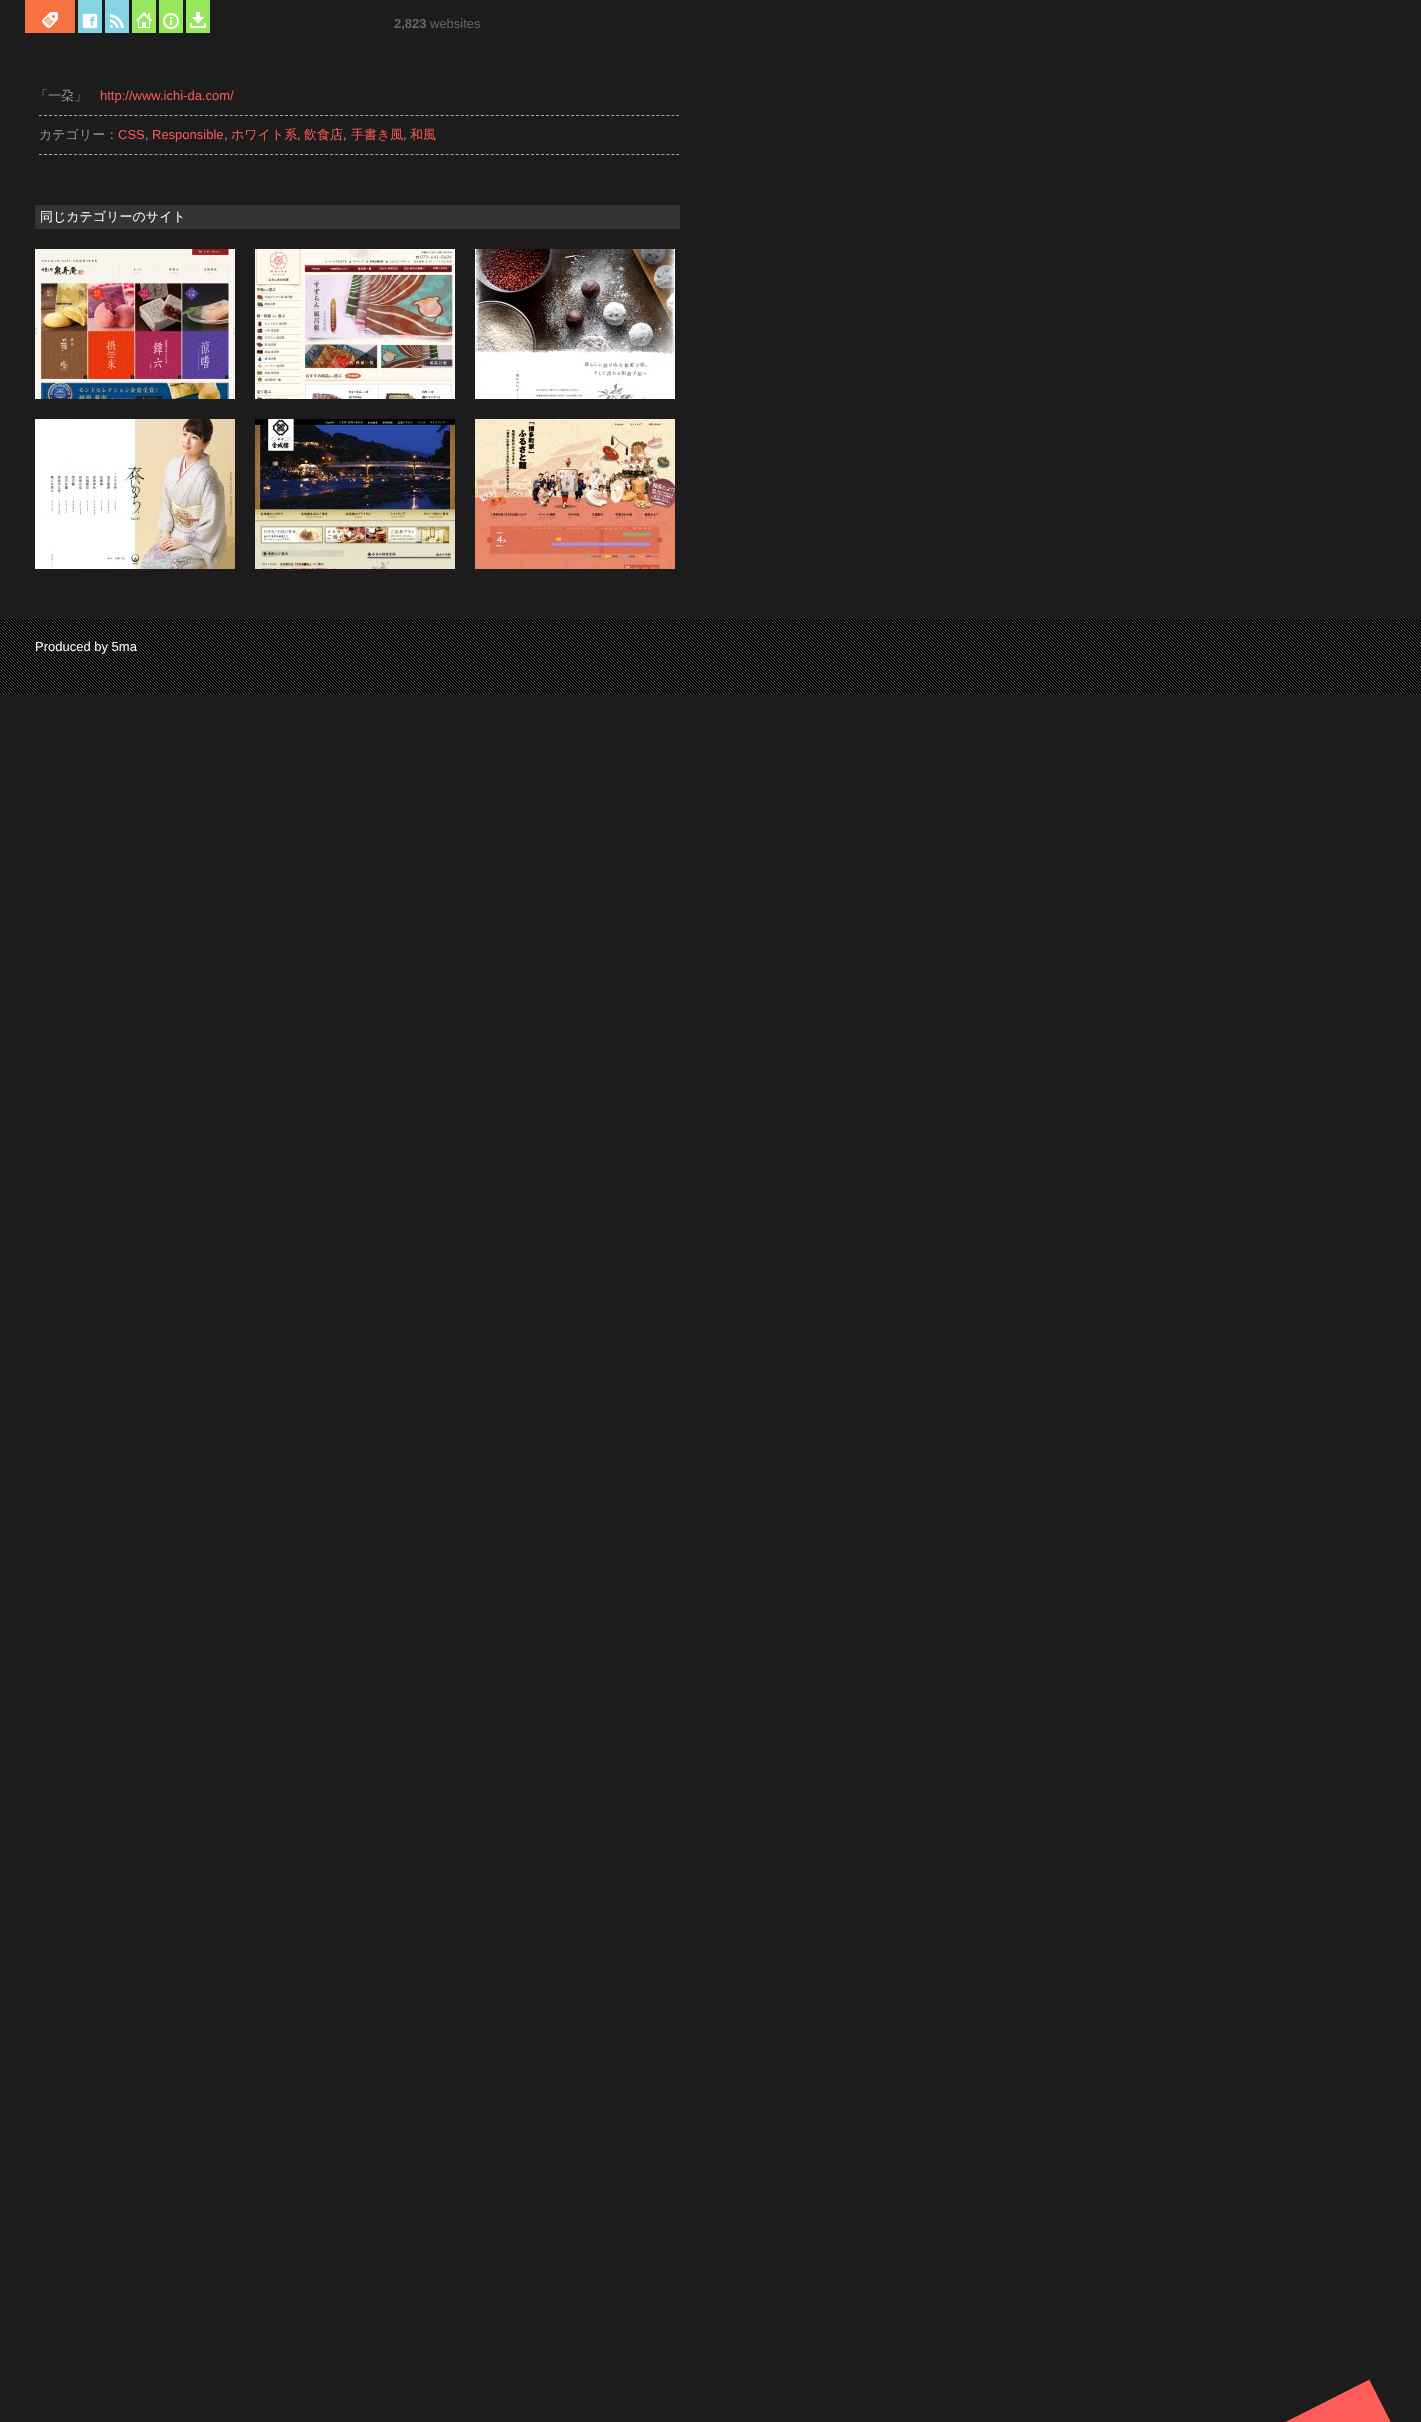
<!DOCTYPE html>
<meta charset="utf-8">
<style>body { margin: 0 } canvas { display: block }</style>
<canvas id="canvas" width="1421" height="2422"></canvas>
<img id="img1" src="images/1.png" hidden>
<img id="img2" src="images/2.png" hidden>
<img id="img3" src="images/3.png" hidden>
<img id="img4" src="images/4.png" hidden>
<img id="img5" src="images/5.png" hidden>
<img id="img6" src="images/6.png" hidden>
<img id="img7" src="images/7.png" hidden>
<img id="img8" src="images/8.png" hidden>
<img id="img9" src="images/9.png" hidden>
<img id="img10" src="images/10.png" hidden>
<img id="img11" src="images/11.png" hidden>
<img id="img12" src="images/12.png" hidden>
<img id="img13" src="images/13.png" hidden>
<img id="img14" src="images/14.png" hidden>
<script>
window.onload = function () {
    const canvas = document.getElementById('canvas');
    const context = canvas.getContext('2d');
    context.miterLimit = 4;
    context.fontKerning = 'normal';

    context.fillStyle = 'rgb(28, 28, 28)';
    context.fillRect(0, 0, 1421, 2422);
    context.drawImage(document.getElementById('img1'), 25, 0, 50, 33);
    context.drawImage(document.getElementById('img2'), 78, 0, 24, 33);
    context.drawImage(document.getElementById('img3'), 105, 0, 24, 33);
    context.drawImage(document.getElementById('img4'), 132, 0, 24, 33);
    context.drawImage(document.getElementById('img5'), 159, 0, 24, 33);
    context.drawImage(document.getElementById('img6'), 186, 0, 24, 33);
    context.beginPath();
    context.moveTo(39, 115.5);
    context.lineTo(679, 115.5);
    context.strokeStyle = 'rgb(170, 170, 170)';
    context.setLineDash([3, 2.02]);
    context.stroke();
    context.beginPath();
    context.moveTo(39, 154.5);
    context.lineTo(679, 154.5);
    context.stroke();
    context.fillStyle = 'rgb(51, 51, 51)';
    context.fillRect(35, 205, 645, 24);
    context.drawImage(document.getElementById('img7'), 35, 249, 200, 150);
    context.drawImage(document.getElementById('img8'), 255, 249, 200, 150);
    context.drawImage(document.getElementById('img9'), 475, 249, 200, 150);
    context.drawImage(document.getElementById('img10'), 35, 419, 200, 150);
    context.drawImage(document.getElementById('img11'), 255, 419, 200, 150);
    context.drawImage(document.getElementById('img12'), 475, 419, 200, 150);
    context.drawImage(document.getElementById('img13'), 0, 619, 1421, 75);
    context.drawImage(document.getElementById('img14'), 1285, 2379, 106, 43);
    context.font = 'bold 13px Liberation Sans';
    context.fillStyle = 'rgb(102, 102, 102)';
    context.fillText('2,823', 394, 28);
    context.font = '13px Liberation Sans';
    context.fillText('websites', 430, 28);
    context.font = '500 13px WenQuanYi Zen Hei';
    context.fillStyle = 'rgb(153, 153, 153)';
    context.fillText('「一朶」', 35, 100);
    context.font = '13px Liberation Sans';
    context.fillStyle = 'rgb(255, 92, 87)';
    context.fillText('http://www.ichi-da.com/', 100, 100);
    context.font = '500 13px WenQuanYi Zen Hei';
    context.fillStyle = 'rgb(153, 153, 153)';
    context.fillText('カテゴリー：', 39, 139);
    context.font = '13px Liberation Sans';
    context.fillStyle = 'rgb(255, 92, 87)';
    context.fillText('CSS', 118, 139);
    context.fillStyle = 'rgb(153, 153, 153)';
    context.fillText(',', 145, 139);
    context.fillStyle = 'rgb(255, 92, 87)';
    context.fillText('Responsible', 152, 139);
    context.fillStyle = 'rgb(153, 153, 153)';
    context.fillText(',', 224, 139);
    context.font = '500 13px WenQuanYi Zen Hei';
    context.fillStyle = 'rgb(255, 92, 87)';
    context.fillText('ホワイト系', 231, 139);
    context.font = '13px Liberation Sans';
    context.fillStyle = 'rgb(153, 153, 153)';
    context.fillText(',', 297, 139);
    context.font = '500 13px WenQuanYi Zen Hei';
    context.fillStyle = 'rgb(255, 92, 87)';
    context.fillText('飲食店', 304, 139);
    context.font = '13px Liberation Sans';
    context.fillStyle = 'rgb(153, 153, 153)';
    context.fillText(',', 343, 139);
    context.font = '500 13px WenQuanYi Zen Hei';
    context.fillStyle = 'rgb(255, 92, 87)';
    context.fillText('手書き風', 351, 139);
    context.font = '13px Liberation Sans';
    context.fillStyle = 'rgb(153, 153, 153)';
    context.fillText(',', 403, 139);
    context.font = '500 13px WenQuanYi Zen Hei';
    context.fillStyle = 'rgb(255, 92, 87)';
    context.fillText('和風', 410, 139);
    context.fillStyle = 'rgb(255, 255, 255)';
    context.fillText('同じカテゴリーのサイト', 40, 221);
    context.font = '13px Liberation Sans';
    context.fillText('Produced by 5ma', 35, 651);
};
</script>
